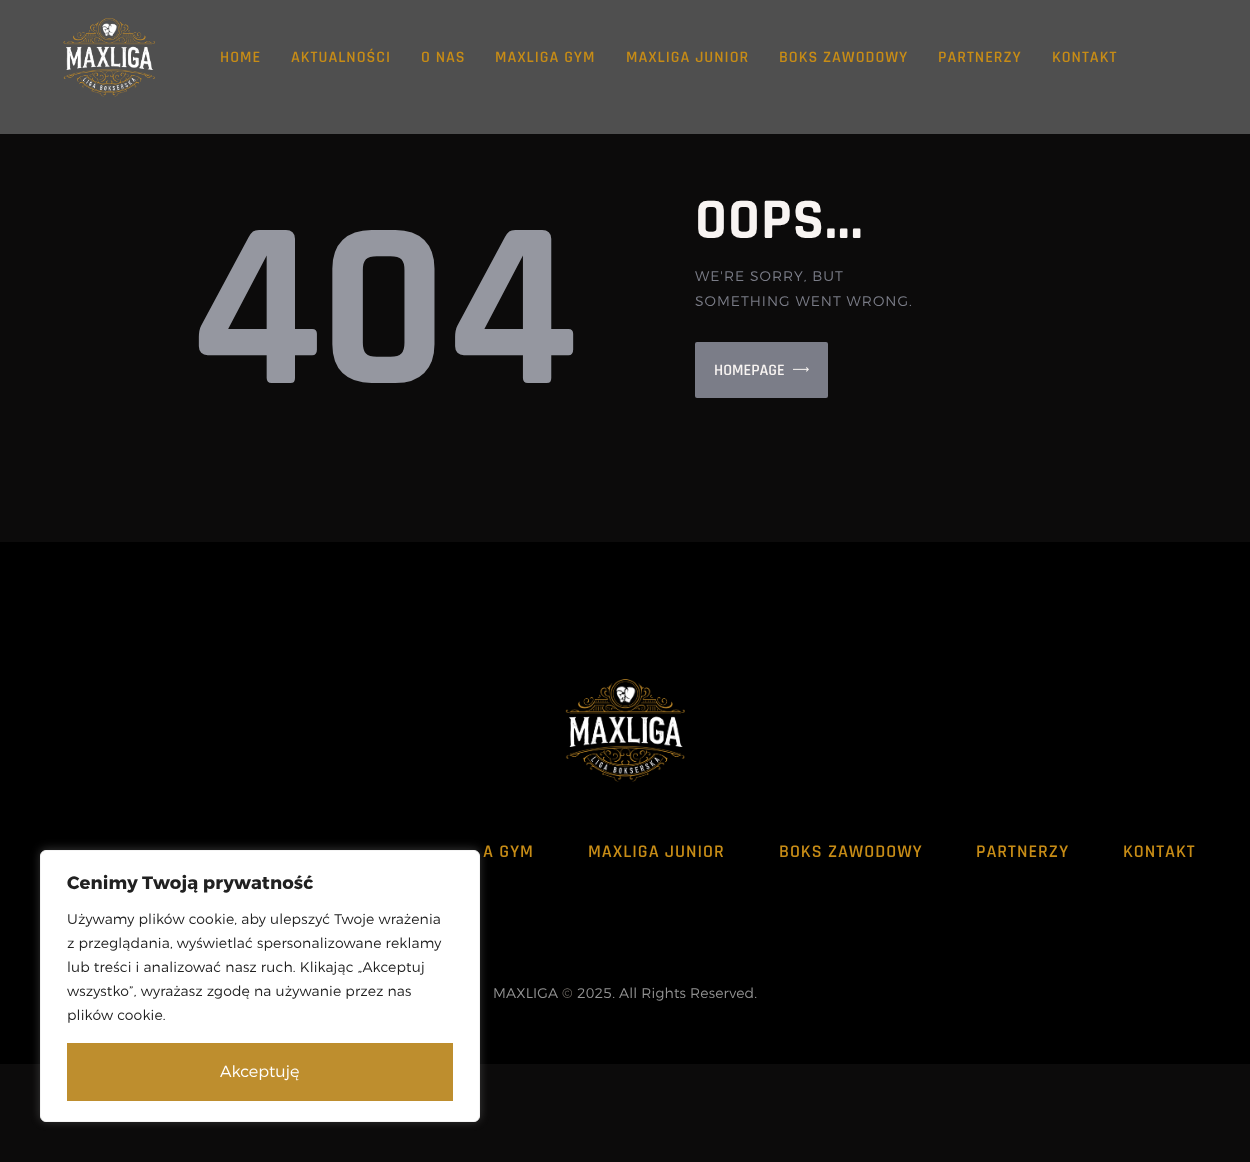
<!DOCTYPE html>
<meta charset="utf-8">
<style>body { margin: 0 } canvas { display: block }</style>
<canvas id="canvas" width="1250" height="1162"></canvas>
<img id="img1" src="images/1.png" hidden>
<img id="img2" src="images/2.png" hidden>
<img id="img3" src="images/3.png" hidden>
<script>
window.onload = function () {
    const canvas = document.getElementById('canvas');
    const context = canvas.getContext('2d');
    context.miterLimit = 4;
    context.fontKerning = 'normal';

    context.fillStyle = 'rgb(12, 11, 11)';
    context.fillRect(0, 0, 1250, 1162);
    context.fillStyle = 'rgb(79, 79, 79)';
    context.fillRect(0, 0, 1250, 134);
    context.drawImage(document.getElementById('img1'), 63, 18, 92, 79);
    context.fillStyle = 'rgb(123, 125, 136)';
    context.beginPath();
    context.roundRect(695, 342, 133, 56, 2);
    context.fill();
    context.drawImage(document.getElementById('img2'), 793, 367, 16, 5);
    context.fillStyle = 'rgb(0, 0, 0)';
    context.fillRect(0, 542, 1250, 522);
    context.drawImage(document.getElementById('img3'), 565, 679, 120, 103);
    context.fillStyle = 'rgba(172, 171, 171, 0.3)';
    context.filter = 'blur(5px)';
    context.beginPath();
    context.roundRect(40, 849, 440, 272, 6);
    context.fill();
    context.filter = 'none';
    context.fillStyle = 'rgb(255, 255, 255)';
    context.beginPath();
    context.roundRect(40.5, 850.5, 439, 271, 5.5);
    context.fill();
    context.strokeStyle = 'rgb(244, 244, 244)';
    context.stroke();
    context.fillStyle = 'rgb(190, 142, 46)';
    context.fillRect(67, 1043, 386, 58);
    context.letterSpacing = '1px';
    context.font = '600 16px Rajdhani';
    context.fillStyle = 'rgb(199, 140, 22)';
    context.fillText('HOME', 220, 62);
    context.fillText('AKTUALNOŚCI', 291, 62);
    context.fillText('O NAS', 421, 62);
    context.fillText('MAXLIGA GYM', 495, 62);
    context.fillText('MAXLIGA JUNIOR', 626, 62);
    context.fillText('BOKS ZAWODOWY', 779, 62);
    context.fillText('PARTNERZY', 938, 62);
    context.fillText('KONTAKT', 1052, 62);
    context.letterSpacing = '0px';
    context.font = 'bold 238px Rajdhani';
    context.fillStyle = 'rgb(149, 151, 160)';
    context.fillText('404', 191, 383);
    context.letterSpacing = '1px';
    context.font = 'bold 58px Rajdhani';
    context.fillStyle = 'rgb(248, 244, 242)';
    context.fillText('OOPS...', 695, 238);
    context.font = '300 14px Montserrat';
    context.fillStyle = 'rgb(123, 125, 136)';
    context.fillText('WE\'RE SORRY, BUT', 695, 281);
    context.fillText('SOMETHING WENT WRONG.', 695, 306);
    context.letterSpacing = '0px';
    context.font = '600 16px Rajdhani';
    context.fillStyle = 'rgb(248, 244, 242)';
    context.fillText('HOMEPAGE', 714, 375);
    context.letterSpacing = '1px';
    context.font = '600 18px Rajdhani';
    context.fillStyle = 'rgb(199, 140, 22)';
    context.fillText('A GYM', 483, 857);
    context.fillText('MAXLIGA JUNIOR', 588, 857);
    context.fillText('BOKS ZAWODOWY', 779, 857);
    context.fillText('PARTNERZY', 976, 857);
    context.fillText('KONTAKT', 1123, 857);
    context.letterSpacing = '0.15px';
    context.font = '300 14px Montserrat';
    context.fillStyle = 'rgb(146, 146, 146)';
    context.fillText('MAXLIGA', 493, 998);
    context.fillStyle = 'rgb(121, 115, 108)';
    context.fillText('©', 562, 998);
    context.fillStyle = 'rgb(146, 146, 146)';
    context.fillText('2025. All Rights Reserved.', 577, 998);
    context.font = 'bold 18px Montserrat';
    context.fillStyle = 'rgb(33, 33, 33)';
    context.fillText('Cenimy Twoją prywatność', 67, 889);
    context.font = '300 14px Montserrat';
    context.fillText('Używamy plików cookie, aby ulepszyć Twoje wrażenia', 67, 924);
    context.fillText('z przeglądania, wyświetlać spersonalizowane reklamy', 67, 948);
    context.fillText('lub treści i analizować nasz ruch. Klikając „Akceptuj', 67, 972);
    context.fillText('wszystko”, wyrażasz zgodę na używanie przez nas', 67, 996);
    context.fillText('plików cookie.', 67, 1020);
    context.letterSpacing = '0px';
    context.font = '300 16px Montserrat';
    context.fillStyle = 'rgb(255, 255, 255)';
    context.fillText('Akceptuję', 220, 1077);
};
</script>
